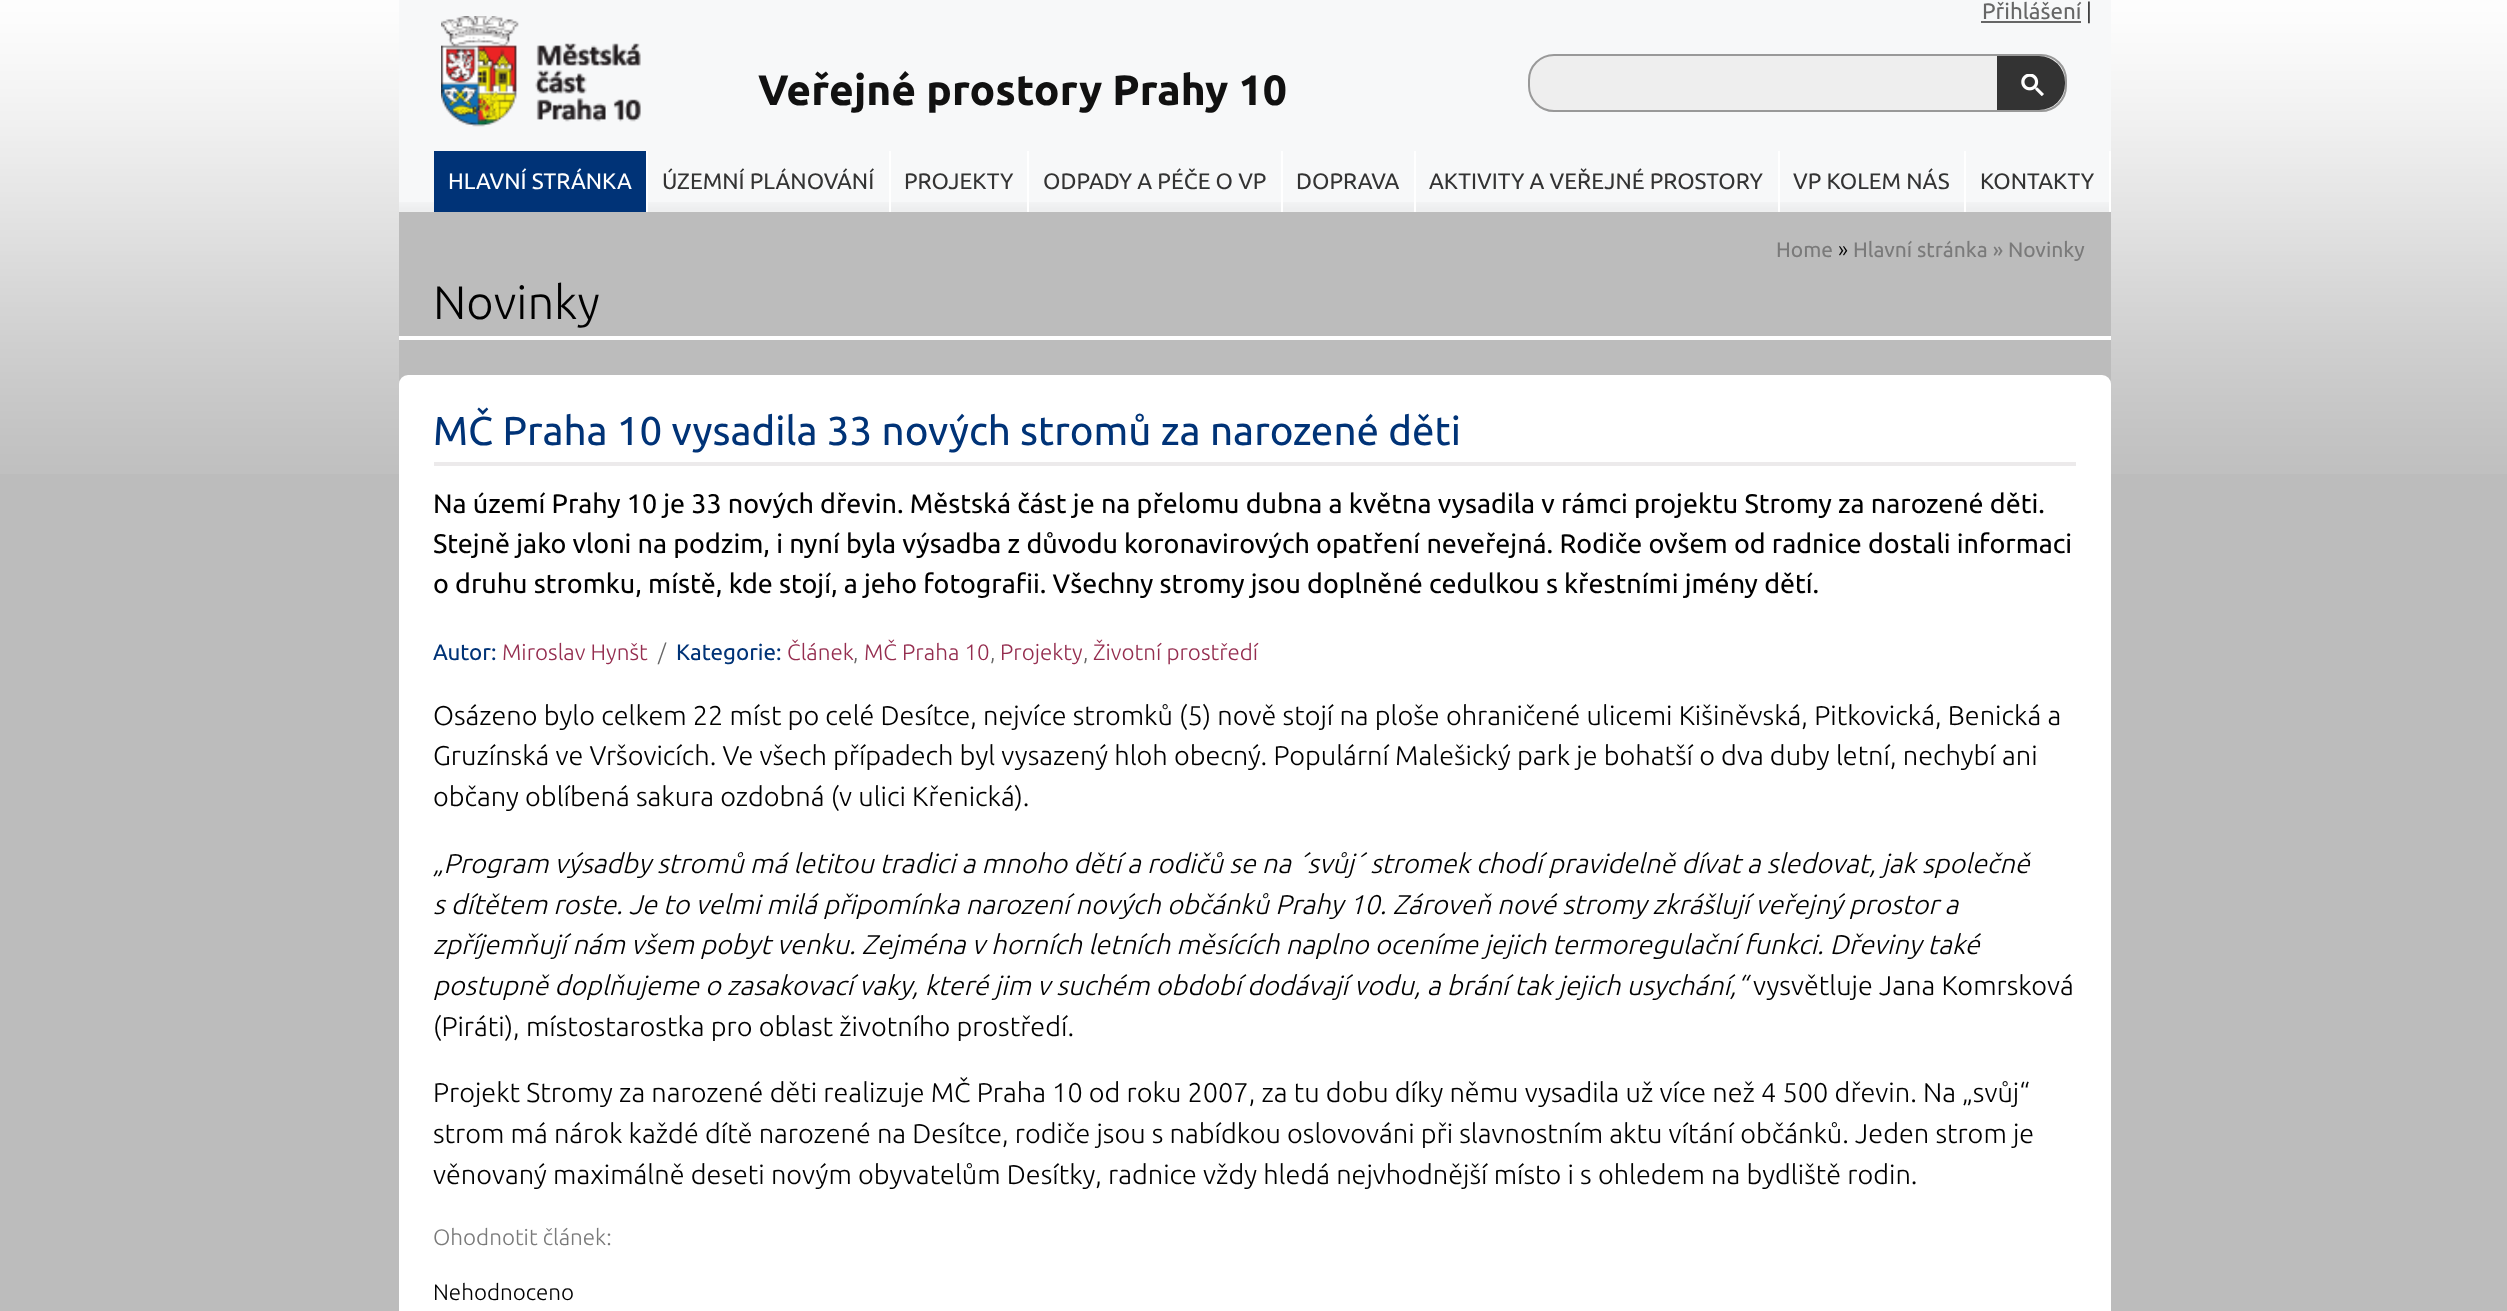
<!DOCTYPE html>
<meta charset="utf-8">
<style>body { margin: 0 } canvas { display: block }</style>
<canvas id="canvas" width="2507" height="1311"></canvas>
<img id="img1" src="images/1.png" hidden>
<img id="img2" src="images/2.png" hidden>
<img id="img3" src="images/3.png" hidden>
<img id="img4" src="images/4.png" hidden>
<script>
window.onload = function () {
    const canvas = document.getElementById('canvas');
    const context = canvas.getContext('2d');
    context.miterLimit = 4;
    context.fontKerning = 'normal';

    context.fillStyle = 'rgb(188, 188, 188)';
    context.fillRect(0, 0, 2507, 1311);
    context.drawImage(document.getElementById('img1'), 0, 0, 2507, 474);
    context.fillRect(399, 212, 1712, 172);
    context.fillStyle = 'rgb(247, 248, 249)';
    context.fillRect(399, 0, 1712, 202);
    context.drawImage(document.getElementById('img2'), 399, 202, 1710, 10);
    context.fillStyle = 'rgb(102, 102, 102)';
    context.fillRect(1981, 21, 100, 2);
    context.drawImage(document.getElementById('img3'), 441, 16, 200, 111);
    context.fillStyle = 'rgb(238, 238, 238)';
    context.beginPath();
    context.roundRect(1529, 55, 537, 56, 25);
    context.fill();
    context.strokeStyle = 'rgb(153, 153, 153)';
    context.lineWidth = 2;
    context.stroke();
    context.fillStyle = 'rgb(51, 51, 51)';
    context.beginPath();
    context.roundRect(1997, 56, 68, 54, [0, 26, 26, 0]);
    context.fill();
    context.drawImage(document.getElementById('img4'), 2021, 74, 23, 22);
    context.fillStyle = 'rgb(255, 255, 255)';
    context.fillRect(646, 151, 2, 61);
    context.fillStyle = 'rgb(0, 51, 119)';
    context.fillRect(434, 151, 212, 61);
    context.fillStyle = 'rgb(255, 255, 255)';
    context.fillRect(889, 151, 2, 61);
    context.fillRect(1027, 151, 2, 61);
    context.fillRect(1281, 151, 2, 61);
    context.fillRect(1414, 151, 2, 61);
    context.fillRect(1778, 151, 2, 61);
    context.fillRect(1964, 151, 2, 61);
    context.fillRect(2109, 151, 2, 61);
    context.fillRect(399, 336, 1712, 4);
    context.beginPath();
    context.roundRect(399, 375, 1712, 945, 9);
    context.fill();
    context.fillStyle = 'rgb(236, 234, 235)';
    context.fillRect(434, 462, 1642, 4);
    context.font = '22.4px Ubuntu';
    context.fillStyle = 'rgb(102, 102, 102)';
    context.fillText('Přihlášení', 1982, 19);
    context.font = '300 22.4px Ubuntu';
    context.fillStyle = 'rgb(0, 0, 0)';
    context.fillText('|', 2086, 19);
    context.font = 'bold 42.5px Ubuntu';
    context.fillStyle = 'rgb(17, 17, 17)';
    context.fillText('Veřejné prostory Prahy 10', 758, 105);
    context.font = '22.4px Ubuntu';
    context.fillStyle = 'rgb(255, 255, 255)';
    context.fillText('HLAVNÍ STRÁNKA', 448, 189);
    context.fillStyle = 'rgb(51, 51, 51)';
    context.fillText('ÚZEMNÍ PLÁNOVÁNÍ', 662, 189);
    context.fillText('PROJEKTY', 904, 189);
    context.fillText('ODPADY A PÉČE O VP', 1043, 189);
    context.fillText('DOPRAVA', 1296, 189);
    context.fillText('AKTIVITY A VEŘEJNÉ PROSTORY', 1429, 189);
    context.fillText('VP KOLEM NÁS', 1793, 189);
    context.fillText('KONTAKTY', 1980, 189);
    context.font = '21px Ubuntu';
    context.fillStyle = 'rgb(122, 122, 122)';
    context.fillText('Home', 1776, 257);
    context.font = '300 22.4px Ubuntu';
    context.fillStyle = 'rgb(0, 0, 0)';
    context.fillText('»', 1838, 257);
    context.font = '21px Ubuntu';
    context.fillStyle = 'rgb(122, 122, 122)';
    context.fillText('Hlavní stránka » Novinky', 1853, 257);
    context.font = '300 47px Ubuntu';
    context.fillStyle = 'rgb(0, 0, 0)';
    context.fillText('Novinky', 433, 319);
    context.font = '40.3px Ubuntu';
    context.fillStyle = 'rgb(0, 51, 119)';
    context.fillText('MČ Praha 10 vysadila 33 nových stromů za narozené děti', 433, 445);
    context.font = '26.88px Ubuntu';
    context.fillStyle = 'rgb(0, 0, 0)';
    context.fillText('Na území Prahy 10 je 33 nových dřevin. Městská část je na přelomu dubna a května vysadila v rámci projektu Stromy za narozené děti.', 433, 513);
    context.fillText('Stejně jako vloni na podzim, i nyní byla výsadba z důvodu koronavirových opatření neveřejná. Rodiče ovšem od radnice dostali informaci', 433, 553);
    context.fillText('o druhu stromku, místě, kde stojí, a jeho fotografii. Všechny stromy jsou doplněné cedulkou s křestními jmény dětí.', 433, 593);
    context.font = '22.4px Ubuntu';
    context.fillStyle = 'rgb(0, 51, 119)';
    context.fillText('Autor:', 433, 660);
    context.font = '300 22.4px Ubuntu';
    context.fillStyle = 'rgb(149, 45, 79)';
    context.fillText('Miroslav Hynšt', 502, 660);
    context.fillStyle = 'rgb(102, 102, 102)';
    context.fillText('/', 658, 660);
    context.font = '22.4px Ubuntu';
    context.fillStyle = 'rgb(0, 51, 119)';
    context.fillText('Kategorie:', 676, 660);
    context.font = '300 22.4px Ubuntu';
    context.fillStyle = 'rgb(149, 45, 79)';
    context.fillText('Článek', 787, 660);
    context.fillStyle = 'rgb(102, 102, 102)';
    context.fillText(',', 853, 660);
    context.fillStyle = 'rgb(149, 45, 79)';
    context.fillText('MČ Praha 10', 864, 660);
    context.fillStyle = 'rgb(102, 102, 102)';
    context.fillText(',', 990, 660);
    context.fillStyle = 'rgb(149, 45, 79)';
    context.fillText('Projekty', 1000, 660);
    context.fillStyle = 'rgb(102, 102, 102)';
    context.fillText(',', 1083, 660);
    context.fillStyle = 'rgb(149, 45, 79)';
    context.fillText('Životní prostředí', 1093, 660);
    context.font = '300 27.1px Ubuntu';
    context.fillStyle = 'rgb(0, 0, 0)';
    context.fillText('Osázeno bylo celkem 22 míst po celé Desítce, nejvíce stromků (5) nově stojí na ploše ohraničené ulicemi Kišiněvská, Pitkovická, Benická a', 433, 725);
    context.fillText('Gruzínská ve Vršovicích. Ve všech případech byl vysazený hloh obecný. Populární Malešický park je bohatší o dva duby letní, nechybí ani', 433, 765);
    context.fillText('občany oblíbená sakura ozdobná (v ulici Křenická).', 433, 806);
    context.font = 'italic 300 27.1px Ubuntu';
    context.fillText('„Program výsadby stromů má letitou tradici a mnoho dětí a rodičů se na ´svůj´ stromek chodí pravidelně dívat a sledovat, jak společně', 433, 873);
    context.fillText('s dítětem roste. Je to velmi milá připomínka narození nových občánků Prahy 10. Zároveň nové stromy zkrášlují veřejný prostor a', 433, 914);
    context.fillText('zpříjemňují nám všem pobyt venku. Zejména v horních letních měsících naplno oceníme jejich termoregulační funkci. Dřeviny také', 433, 954);
    context.fillText('postupně doplňujeme o zasakovací vaky, které jim v suchém období dodávají vodu, a brání tak jejich usychání,“', 433, 995);
    context.font = '300 27.1px Ubuntu';
    context.fillText('vysvětluje Jana Komrsková', 1753, 995);
    context.fillText('(Piráti), místostarostka pro oblast životního prostředí.', 433, 1036);
    context.fillText('Projekt Stromy za narozené děti realizuje MČ Praha 10 od roku 2007, za tu dobu díky němu vysadila už více než 4 500 dřevin. Na „svůj“', 433, 1102);
    context.fillText('strom má nárok každé dítě narozené na Desítce, rodiče jsou s nabídkou oslovováni při slavnostním aktu vítání občánků. Jeden strom je', 433, 1143);
    context.fillText('věnovaný maximálně deseti novým obyvatelům Desítky, radnice vždy hledá nejvhodnější místo i s ohledem na bydliště rodin.', 433, 1184);
    context.font = '300 22.4px Ubuntu';
    context.fillStyle = 'rgb(122, 122, 122)';
    context.fillText('Ohodnotit článek:', 433, 1245);
    context.fillStyle = 'rgb(0, 0, 0)';
    context.fillText('Nehodnoceno', 433, 1300);
};
</script>
